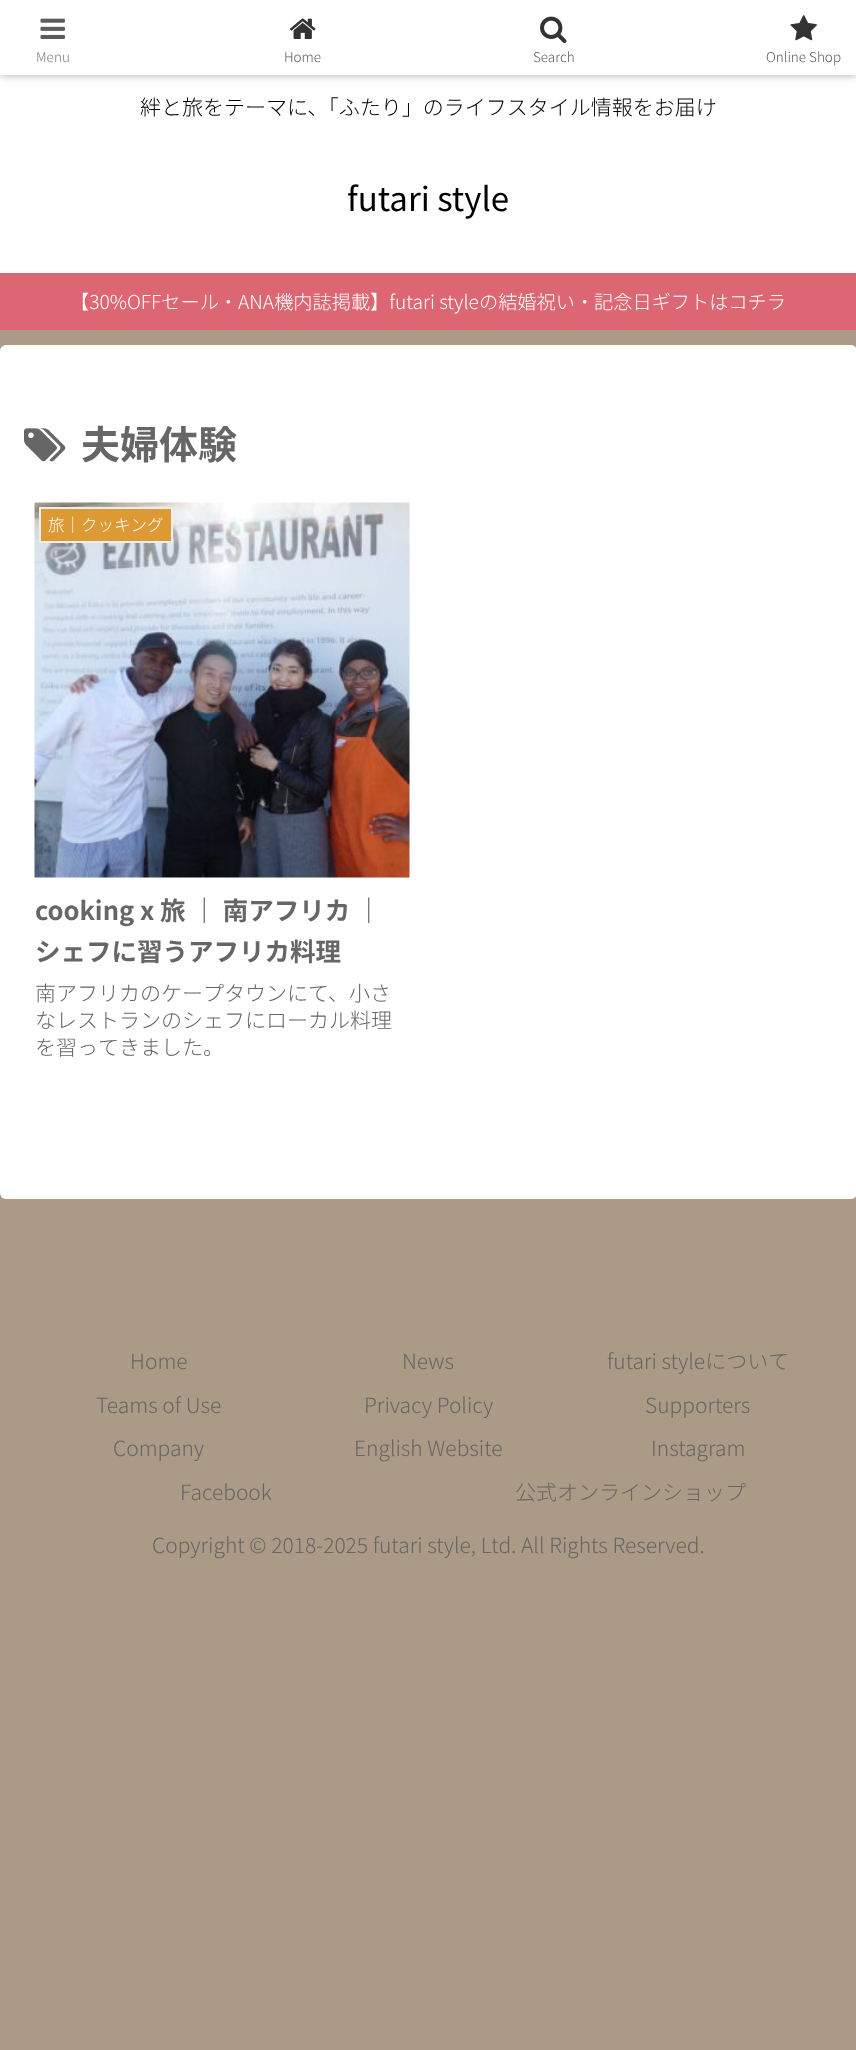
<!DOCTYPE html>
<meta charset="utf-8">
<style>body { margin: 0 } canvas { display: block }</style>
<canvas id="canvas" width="856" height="2050"></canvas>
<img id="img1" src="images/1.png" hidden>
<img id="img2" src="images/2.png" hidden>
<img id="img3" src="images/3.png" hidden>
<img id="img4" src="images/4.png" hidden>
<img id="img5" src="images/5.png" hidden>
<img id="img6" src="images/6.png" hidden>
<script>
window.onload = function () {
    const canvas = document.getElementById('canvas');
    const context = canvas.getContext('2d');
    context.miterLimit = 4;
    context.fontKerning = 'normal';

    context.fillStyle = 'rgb(171, 154, 134)';
    context.fillRect(0, 0, 856, 2050);
    context.fillStyle = 'rgb(255, 255, 255)';
    context.fillRect(0, 75, 856, 198);
    context.fillStyle = 'rgb(169, 169, 169)';
    context.filter = 'blur(4px)';
    context.beginPath();
    context.rect(0, 0, 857, 75);
    context.fill();
    context.filter = 'none';
    context.fillStyle = 'rgb(255, 255, 255)';
    context.fillRect(0, 0, 856, 75);
    context.drawImage(document.getElementById('img1'), 40, 18, 25, 21);
    context.drawImage(document.getElementById('img2'), 290, 18, 26, 21);
    context.drawImage(document.getElementById('img3'), 540, 16, 27, 28);
    context.drawImage(document.getElementById('img4'), 790, 15, 27, 26);
    context.fillStyle = 'rgb(221, 102, 115)';
    context.fillRect(0, 273, 856, 57);
    context.fillStyle = 'rgb(255, 255, 255)';
    context.beginPath();
    context.roundRect(0, 345, 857, 854, 6);
    context.fill();
    context.drawImage(document.getElementById('img5'), 24, 428, 42, 34);
    context.drawImage(document.getElementById('img6'), 34, 502, 376, 376);
    context.fillStyle = 'rgb(221, 153, 51)';
    context.beginPath();
    context.rect(40, 508, 132, 34);
    context.fill();
    context.strokeStyle = 'rgb(238, 238, 238)';
    context.lineWidth = 2;
    context.stroke();
    context.font = '300 13.5px Noto Sans JP';
    context.fillStyle = 'rgb(124, 124, 124)';
    context.fillText('Menu', 36, 62);
    context.fillStyle = 'rgb(92, 92, 92)';
    context.fillText('Home', 284, 62);
    context.fillText('Search', 533, 62);
    context.fillText('Online Shop', 766, 62);
    context.font = '300 21px Noto Sans JP';
    context.fillStyle = 'rgb(0, 0, 0)';
    context.fillText('絆と旅をテーマに、「ふたり」のライフスタイル情報をお届け', 140, 115);
    context.font = '33px Noto Sans JP';
    context.fillText('futari style', 347, 211);
    context.font = '300 19.2px Noto Sans JP';
    context.fillStyle = 'rgb(255, 255, 255)';
    context.fillText('【30%OFFセール・ANA機内誌掲載】futari styleの結婚祝い・記念日ギフトはコチラ', 70, 309);
    context.font = 'bold 39px Noto Sans JP';
    context.fillStyle = 'rgb(102, 102, 102)';
    context.fillText('夫婦体験', 81, 459);
    context.font = '300 16.5px Noto Sans JP';
    context.fillStyle = 'rgb(255, 255, 255)';
    context.fillText('旅｜クッキング', 48, 531);
    context.font = 'bold 25.5px Noto Sans JP';
    context.fillStyle = 'rgb(102, 102, 102)';
    context.fillText('cooking x 旅 ｜ 南アフリカ ｜', 35, 920);
    context.fillText('シェフに習うアフリカ料理', 35, 961);
    context.font = '300 21px Noto Sans JP';
    context.fillText('南アフリカのケープタウンにて、小さ', 35, 1001);
    context.fillText('なレストランのシェフにローカル料理', 35, 1028);
    context.fillText('を習ってきました。', 35, 1055);
    context.fillText('Home', 130, 1369);
    context.fillText('News', 402, 1369);
    context.fillText('futari styleについて', 607, 1369);
    context.fillText('Teams of Use', 96, 1413);
    context.fillText('Privacy Policy', 364, 1413);
    context.fillText('Supporters', 645, 1413);
    context.fillText('Company', 113, 1456);
    context.fillText('English Website', 354, 1456);
    context.fillText('Instagram', 651, 1456);
    context.fillText('Facebook', 180, 1500);
    context.fillText('公式オンラインショップ', 515, 1500);
    context.fillText('Copyright © 2018-2025 futari style, Ltd. All Rights Reserved.', 152, 1553);
};
</script>
